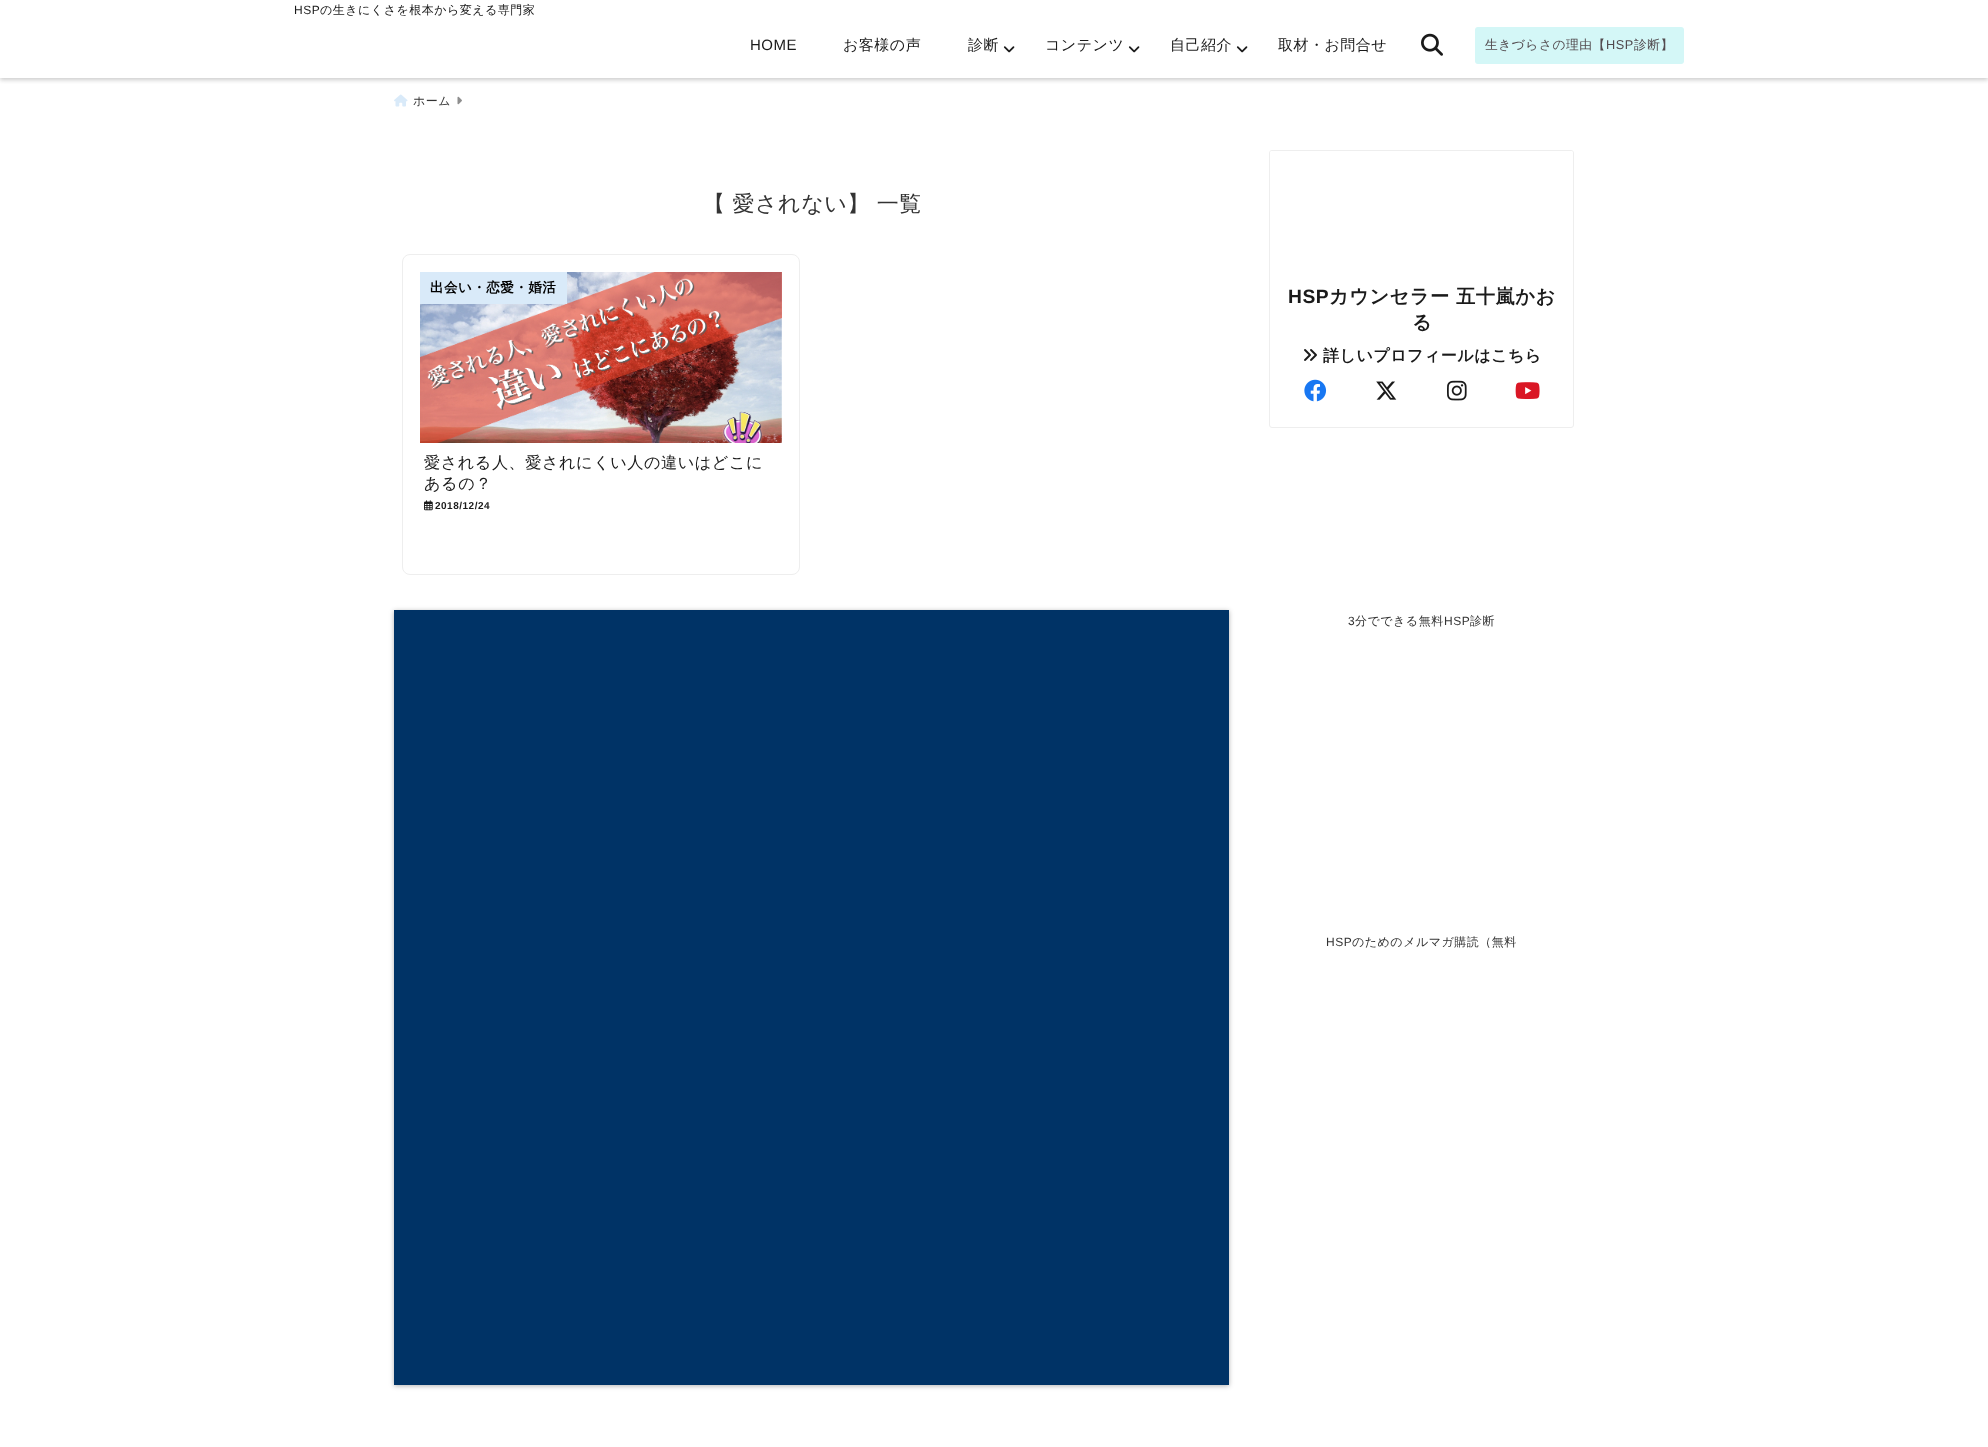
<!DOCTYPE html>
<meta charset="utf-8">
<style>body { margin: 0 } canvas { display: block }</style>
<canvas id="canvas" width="1988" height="1447"></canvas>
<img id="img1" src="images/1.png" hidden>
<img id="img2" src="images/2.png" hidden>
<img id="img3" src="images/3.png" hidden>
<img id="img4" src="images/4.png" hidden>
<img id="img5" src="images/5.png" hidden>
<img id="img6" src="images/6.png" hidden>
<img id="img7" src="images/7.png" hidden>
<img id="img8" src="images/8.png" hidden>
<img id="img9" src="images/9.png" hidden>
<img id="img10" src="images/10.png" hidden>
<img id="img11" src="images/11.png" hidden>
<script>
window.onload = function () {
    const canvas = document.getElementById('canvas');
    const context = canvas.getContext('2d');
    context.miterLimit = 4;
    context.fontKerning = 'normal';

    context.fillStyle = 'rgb(255, 255, 255)';
    context.fillRect(0, 0, 1988, 1447);
    context.save();
    context.beginPath();
    context.rect(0, 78, 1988, 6);
    context.clip();
    context.fillStyle = 'rgb(204, 204, 204)';
    context.filter = 'blur(2px)';
    context.beginPath();
    context.rect(0, 2, 1988, 78);
    context.fill();
    context.filter = 'none';
    context.restore();
    context.drawImage(document.getElementById('img1'), 1003, 46, 12, 7);
    context.drawImage(document.getElementById('img1'), 1128, 46, 12, 7);
    context.drawImage(document.getElementById('img1'), 1236, 46, 12, 7);
    context.drawImage(document.getElementById('img2'), 1421, 33, 22, 23);
    context.fillStyle = 'rgb(212, 247, 247)';
    context.beginPath();
    context.roundRect(1475, 27, 209, 37, 3);
    context.fill();
    context.drawImage(document.getElementById('img3'), 394, 94, 14, 13);
    context.drawImage(document.getElementById('img4'), 457, 96, 5, 9);
    context.beginPath();
    context.roundRect(402.5, 254.5, 397, 320, 7.5);
    context.strokeStyle = 'rgb(238, 238, 238)';
    context.stroke();
    context.drawImage(document.getElementById('img5'), 420, 272, 362, 171);
    context.fillStyle = 'rgb(217, 234, 249)';
    context.fillRect(420, 272, 147, 32);
    context.drawImage(document.getElementById('img6'), 424, 500, 9, 11);
    context.fillStyle = 'rgba(0, 0, 0, 0.3)';
    context.filter = 'blur(2.5px)';
    context.beginPath();
    context.rect(394, 611, 835, 775);
    context.fill();
    context.filter = 'none';
    context.fillStyle = 'rgb(0, 51, 102)';
    context.fillRect(394, 610, 835, 775);
    context.beginPath();
    context.roundRect(1269.5, 150.5, 304, 277, 2.5);
    context.stroke();
    context.fillStyle = 'rgb(255, 255, 255)';
    context.beginPath();
    context.roundRect(1270, 151, 303, 130, [2, 2, 0, 0]);
    context.fill();
    context.drawImage(document.getElementById('img7'), 1304, 349, 13, 12);
    context.drawImage(document.getElementById('img8'), 1304, 379, 23, 23);
    context.drawImage(document.getElementById('img9'), 1376, 381, 21, 19);
    context.drawImage(document.getElementById('img10'), 1447, 380, 20, 21);
    context.drawImage(document.getElementById('img11'), 1515, 382, 25, 17);
    context.letterSpacing = '0.5px';
    context.font = '12px Liberation Sans';
    context.fillStyle = 'rgb(26, 26, 26)';
    context.fillText('HSP', 294, 14);
    context.font = '500 12px WenQuanYi Zen Hei';
    context.fillText('の生きにくさを根本から変える専門家', 320, 14);
    context.font = '15px Liberation Sans';
    context.fillText('HOME', 750, 50);
    context.font = '500 15px WenQuanYi Zen Hei';
    context.fillText('お客様の声', 843, 50);
    context.fillText('診断', 968, 50);
    context.fillText('コンテンツ', 1045, 50);
    context.fillText('自己紹介', 1170, 50);
    context.fillText('取材・お問合せ', 1278, 50);
    context.font = '500 12.75px WenQuanYi Zen Hei';
    context.fillStyle = 'rgb(82, 74, 78)';
    context.fillText('生きづらさの理由【', 1485, 49);
    context.font = '12.75px Liberation Sans';
    context.fillText('HSP', 1606, 49);
    context.font = '500 12.75px WenQuanYi Zen Hei';
    context.fillText('診断】', 1634, 49);
    context.font = '500 12px WenQuanYi Zen Hei';
    context.fillStyle = 'rgb(51, 51, 51)';
    context.fillText('ホーム', 413, 105);
    context.font = '500 22px WenQuanYi Zen Hei';
    context.fillText('【 愛されない】 一覧', 703, 211);
    context.font = 'bold 13.5px WenQuanYi Zen Hei';
    context.fillStyle = 'rgb(0, 0, 0)';
    context.fillText('出会い・恋愛・婚活', 430, 292);
    context.font = '500 16.2px WenQuanYi Zen Hei';
    context.fillStyle = 'rgb(26, 26, 26)';
    context.fillText('愛される人、愛されにくい人の違いはどこに', 424, 468);
    context.fillText('あるの？', 424, 489);
    context.font = 'bold 10px Liberation Sans';
    context.fillText('2018/12/24', 435, 509);
    context.font = 'bold 19.25px Liberation Sans';
    context.fillText('HSP', 1288, 303);
    context.font = 'bold 19.25px WenQuanYi Zen Hei';
    context.fillText('カウンセラー 五十嵐かお', 1329, 303);
    context.fillText('る', 1412, 329);
    context.font = 'bold 16px WenQuanYi Zen Hei';
    context.fillText('詳しいプロフィールはこちら', 1323, 361);
    context.font = '12px Liberation Sans';
    context.fillStyle = 'rgb(51, 51, 51)';
    context.fillText('3', 1348, 625);
    context.font = '500 12px WenQuanYi Zen Hei';
    context.fillText('分でできる無料', 1355, 625);
    context.font = '12px Liberation Sans';
    context.fillText('HSP', 1444, 625);
    context.font = '500 12px WenQuanYi Zen Hei';
    context.fillText('診断', 1470, 625);
    context.font = '12px Liberation Sans';
    context.fillText('HSP', 1326, 946);
    context.font = '500 12px WenQuanYi Zen Hei';
    context.fillText('のためのメルマガ購読（無料', 1352, 946);
};
</script>
